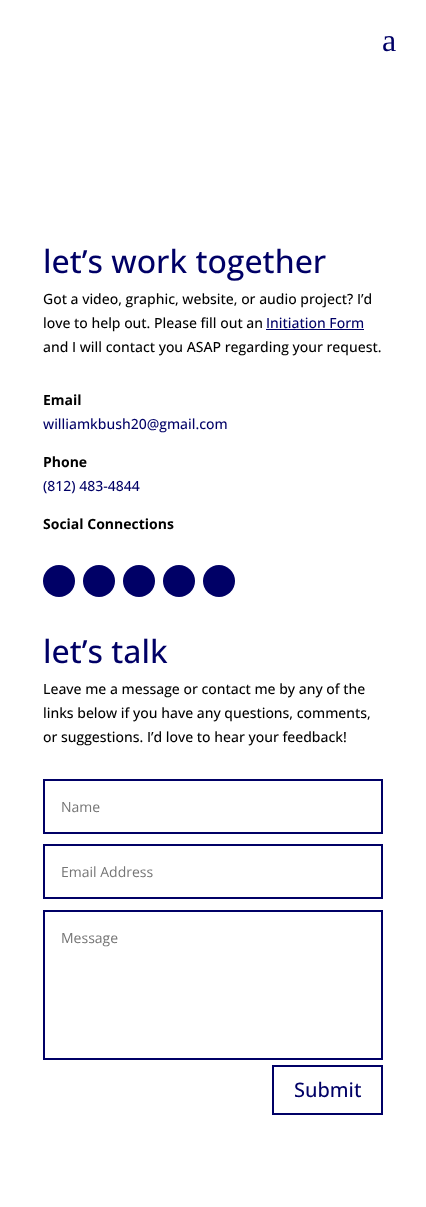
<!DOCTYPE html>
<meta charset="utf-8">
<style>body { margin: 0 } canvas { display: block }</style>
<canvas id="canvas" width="426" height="1207"></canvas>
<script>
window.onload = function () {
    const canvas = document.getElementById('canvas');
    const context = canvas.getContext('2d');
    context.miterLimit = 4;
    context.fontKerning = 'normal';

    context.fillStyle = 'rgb(255, 255, 255)';
    context.fillRect(0, 0, 426, 1207);
    context.fillStyle = 'rgb(0, 0, 102)';
    context.fillRect(266, 329, 98, 1);
    context.beginPath();
    context.arc(59, 581, 16, 0, 2 * Math.PI);
    context.fill();
    context.beginPath();
    context.arc(99, 581, 16, 0, 2 * Math.PI);
    context.fill();
    context.beginPath();
    context.arc(139, 581, 16, 0, 2 * Math.PI);
    context.fill();
    context.beginPath();
    context.arc(179, 581, 16, 0, 2 * Math.PI);
    context.fill();
    context.beginPath();
    context.arc(219, 581, 16, 0, 2 * Math.PI);
    context.fill();
    context.strokeStyle = 'rgb(0, 0, 102)';
    context.lineWidth = 2;
    context.strokeRect(44, 780, 338, 53);
    context.strokeRect(44, 845, 338, 53);
    context.strokeRect(44, 911, 338, 148);
    context.beginPath();
    context.rect(273, 1066, 109, 48);
    context.stroke();
    context.font = '32px Liberation Serif';
    context.fillText('a', 382, 51);
    context.font = '500 32px Open Sans';
    context.fillText('let’s work together', 43, 273);
    context.font = '500 14px Open Sans';
    context.fillStyle = 'rgb(0, 0, 0)';
    context.fillText('Got a video, graphic, website, or audio project? I’d', 43, 304);
    context.fillText('love to help out. Please fill out an', 43, 328);
    context.fillStyle = 'rgb(0, 0, 102)';
    context.fillText('Initiation Form', 266, 328);
    context.fillStyle = 'rgb(0, 0, 0)';
    context.fillText('and I will contact you ASAP regarding your request.', 43, 352);
    context.font = 'bold 14px Open Sans';
    context.fillText('Email', 43, 405);
    context.font = '500 14px Open Sans';
    context.fillStyle = 'rgb(0, 0, 102)';
    context.fillText('williamkbush20@gmail.com', 43, 429);
    context.font = 'bold 14px Open Sans';
    context.fillStyle = 'rgb(0, 0, 0)';
    context.fillText('Phone', 43, 467);
    context.font = '500 14px Open Sans';
    context.fillStyle = 'rgb(0, 0, 102)';
    context.fillText('(812) 483-4844', 43, 491);
    context.font = 'bold 14px Open Sans';
    context.fillStyle = 'rgb(0, 0, 0)';
    context.fillText('Social Connections', 43, 529);
    context.font = '500 32px Open Sans';
    context.fillStyle = 'rgb(0, 0, 102)';
    context.fillText('let’s talk', 43, 663);
    context.font = '500 14px Open Sans';
    context.fillStyle = 'rgb(0, 0, 0)';
    context.fillText('Leave me a message or contact me by any of the', 43, 694);
    context.fillText('links below if you have any questions, comments,', 43, 718);
    context.fillText('or suggestions. I’d love to hear your feedback!', 43, 742);
    context.font = '14px Open Sans';
    context.fillStyle = 'rgb(117, 117, 117)';
    context.fillText('Name', 61, 812);
    context.fillText('Email Address', 61, 877);
    context.fillText('Message', 61, 943);
    context.font = '500 20px Open Sans';
    context.fillStyle = 'rgb(0, 0, 102)';
    context.fillText('Submit', 294, 1097);
};
</script>
